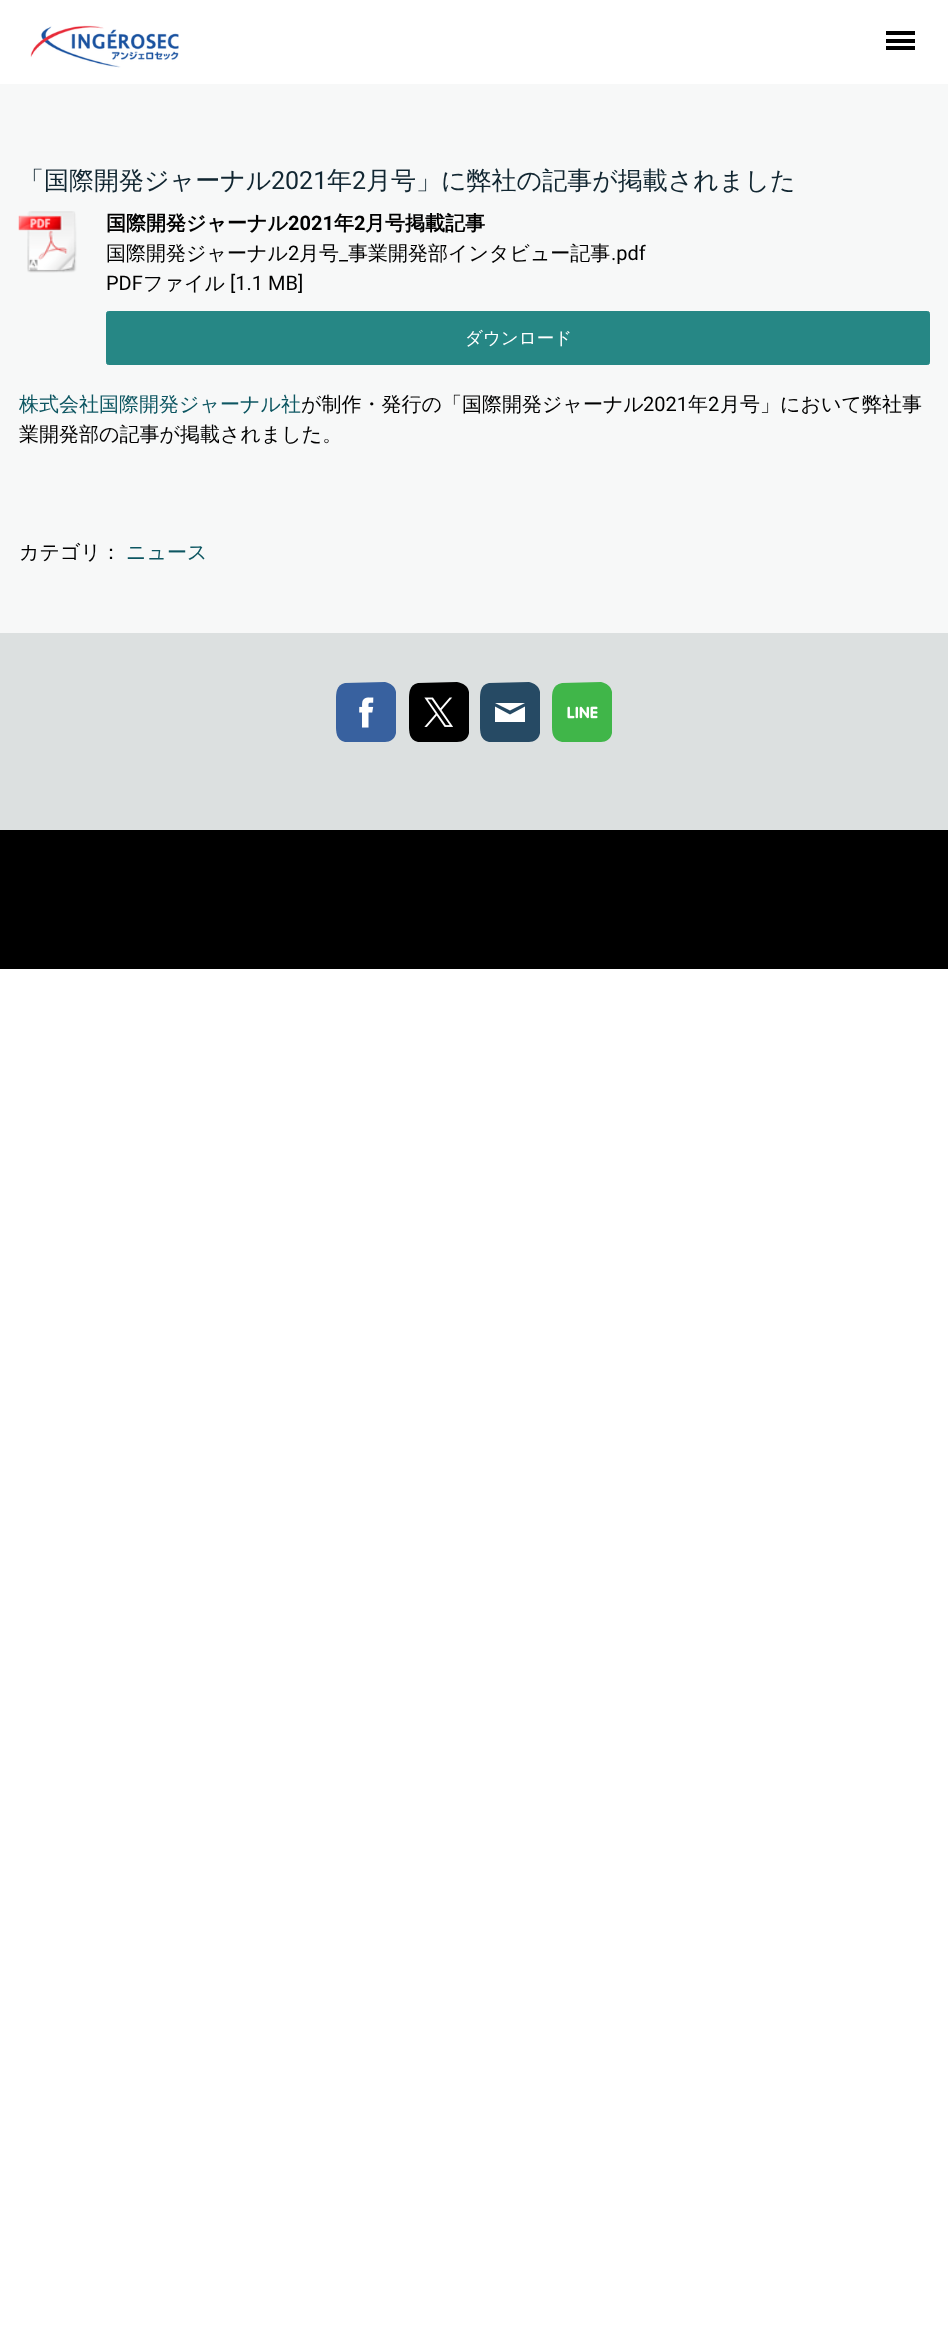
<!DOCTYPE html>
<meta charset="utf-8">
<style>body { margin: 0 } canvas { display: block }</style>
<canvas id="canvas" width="948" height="2347"></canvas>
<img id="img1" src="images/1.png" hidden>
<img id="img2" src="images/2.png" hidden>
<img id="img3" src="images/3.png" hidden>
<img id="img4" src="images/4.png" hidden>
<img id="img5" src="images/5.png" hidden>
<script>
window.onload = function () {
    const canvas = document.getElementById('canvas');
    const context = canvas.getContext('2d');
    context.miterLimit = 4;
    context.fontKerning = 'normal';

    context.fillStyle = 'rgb(255, 255, 255)';
    context.fillRect(0, 0, 948, 2347);
    context.drawImage(document.getElementById('img1'), 30, 25, 149, 43);
    context.fillStyle = 'rgb(0, 0, 0)';
    context.fillRect(886, 39, 29, 4);
    context.fillRect(886, 31, 29, 4);
    context.fillRect(886, 46, 29, 4);
    context.fillStyle = 'rgb(247, 248, 248)';
    context.fillRect(0, 84, 948, 549);
    context.drawImage(document.getElementById('img2'), 18, 211, 59, 62);
    context.fillStyle = 'rgb(38, 135, 133)';
    context.beginPath();
    context.roundRect(106.5, 311.5, 823, 53, 2);
    context.fill();
    context.strokeStyle = 'rgb(38, 135, 133)';
    context.stroke();
    context.fillStyle = 'rgb(220, 224, 224)';
    context.fillRect(0, 633, 948, 197);
    context.fillStyle = 'rgb(56, 97, 159)';
    context.beginPath();
    context.moveTo(385, 742);
    context.lineTo(345, 742);
    context.bezierCurveTo(336, 740, 336, 732, 336, 725);
    context.lineTo(336, 700);
    context.bezierCurveTo(336, 693, 336, 685, 345, 683);
    context.lineTo(385, 682);
    context.bezierCurveTo(390, 683, 395, 686, 396, 692);
    context.lineTo(396, 733);
    context.bezierCurveTo(395, 739, 390, 742, 385, 742);
    context.closePath();
    context.fill();
    context.drawImage(document.getElementById('img3'), 359, 697, 15, 31);
    context.fillStyle = 'rgb(0, 0, 0)';
    context.beginPath();
    context.moveTo(457, 742);
    context.lineTo(418, 742);
    context.bezierCurveTo(409, 740, 409, 732, 409, 725);
    context.lineTo(409, 700);
    context.bezierCurveTo(409, 693, 409, 685, 418, 683);
    context.lineTo(457, 682);
    context.bezierCurveTo(463, 683, 468, 686, 469, 692);
    context.lineTo(469, 733);
    context.bezierCurveTo(468, 739, 463, 742, 457, 742);
    context.closePath();
    context.fill();
    context.drawImage(document.getElementById('img4'), 424, 697, 29, 30);
    context.fillStyle = 'rgb(38, 74, 100)';
    context.beginPath();
    context.moveTo(529, 742);
    context.lineTo(489, 742);
    context.bezierCurveTo(480, 740, 480, 732, 480, 725);
    context.lineTo(480, 700);
    context.bezierCurveTo(480, 693, 480, 685, 489, 683);
    context.lineTo(529, 682);
    context.bezierCurveTo(534, 683, 539, 686, 540, 692);
    context.lineTo(540, 733);
    context.bezierCurveTo(539, 739, 534, 742, 529, 742);
    context.closePath();
    context.fill();
    context.fillStyle = 'rgb(255, 255, 255)';
    context.beginPath();
    context.moveTo(525, 722);
    context.lineTo(495, 722);
    context.lineTo(495, 706.5);
    context.lineTo(510, 714.5);
    context.lineTo(525, 706.5);
    context.closePath();
    context.moveTo(525, 703);
    context.lineTo(495, 703);
    context.lineTo(510, 710.5);
    context.closePath();
    context.fill();
    context.fillStyle = 'rgb(64, 182, 73)';
    context.beginPath();
    context.moveTo(601, 742);
    context.lineTo(562, 742);
    context.bezierCurveTo(552, 740, 552, 732, 552, 725);
    context.lineTo(552, 700);
    context.bezierCurveTo(552, 693, 552, 685, 562, 683);
    context.lineTo(601, 682);
    context.bezierCurveTo(606, 683, 611, 686, 612, 692);
    context.lineTo(612, 733);
    context.bezierCurveTo(611, 739, 606, 742, 601, 742);
    context.closePath();
    context.fill();
    context.drawImage(document.getElementById('img5'), 567, 706, 31, 13);
    context.fillStyle = 'rgb(0, 0, 0)';
    context.fillRect(0, 830, 948, 139);
    context.font = '500 25px WenQuanYi Zen Hei';
    context.fillStyle = 'rgb(17, 38, 49)';
    context.fillText('「国際開発ジャーナル', 19, 189);
    context.font = '25px Roboto';
    context.fillText('2021', 271, 189);
    context.font = '500 25px WenQuanYi Zen Hei';
    context.fillText('年', 327, 189);
    context.font = '25px Roboto';
    context.fillText('2', 352, 189);
    context.font = '500 25px WenQuanYi Zen Hei';
    context.fillText('月号」に弊社の記事が掲載されました', 366, 189);
    context.font = 'bold 20px WenQuanYi Zen Hei';
    context.fillStyle = 'rgb(0, 0, 0)';
    context.fillText('国際開発ジャーナル', 106, 230);
    context.font = 'bold 20px Roboto';
    context.fillText('2021', 288, 230);
    context.font = 'bold 20px WenQuanYi Zen Hei';
    context.fillText('年', 334, 230);
    context.font = 'bold 20px Roboto';
    context.fillText('2', 354, 230);
    context.font = 'bold 20px WenQuanYi Zen Hei';
    context.fillText('月号掲載記事', 365, 230);
    context.font = '500 20px WenQuanYi Zen Hei';
    context.fillText('国際開発ジャーナル', 106, 260);
    context.font = '20px Roboto';
    context.fillText('2', 288, 260);
    context.font = '500 20px WenQuanYi Zen Hei';
    context.fillText('月号', 299, 260);
    context.font = '20px Roboto';
    context.fillText('.pdf', 611, 260);
    context.fillText('_', 339, 260);
    context.font = '500 20px WenQuanYi Zen Hei';
    context.fillText('事業開発部インタビュー記事', 348, 260);
    context.font = '20px Roboto';
    context.fillText('PDF', 106, 290);
    context.font = '500 20px WenQuanYi Zen Hei';
    context.fillText('ファイル', 143, 290);
    context.font = '20px Roboto';
    context.fillText('[1.1 MB]', 230, 290);
    context.font = '500 17.5px WenQuanYi Zen Hei';
    context.fillStyle = 'rgb(255, 255, 255)';
    context.fillText('ダウンロード', 465, 344);
    context.font = '500 20px WenQuanYi Zen Hei';
    context.fillStyle = 'rgb(13, 86, 97)';
    context.fillText('株式会社国際開発ジャーナル社', 19, 411);
    context.fillStyle = 'rgb(0, 0, 0)';
    context.fillText('が制作・発行の「国際開発ジャーナル', 301, 411);
    context.font = '20px Roboto';
    context.fillText('2021', 643, 411);
    context.font = '500 20px WenQuanYi Zen Hei';
    context.fillText('年', 688, 411);
    context.font = '20px Roboto';
    context.fillText('2', 708, 411);
    context.font = '500 20px WenQuanYi Zen Hei';
    context.fillText('月号」において弊社事', 720, 411);
    context.fillText('業開発部の記事が掲載されました。', 19, 441);
    context.fillText('カテゴリ：', 19, 559);
    context.fillStyle = 'rgb(13, 86, 97)';
    context.fillText('ニュース', 126, 559);
};
</script>
